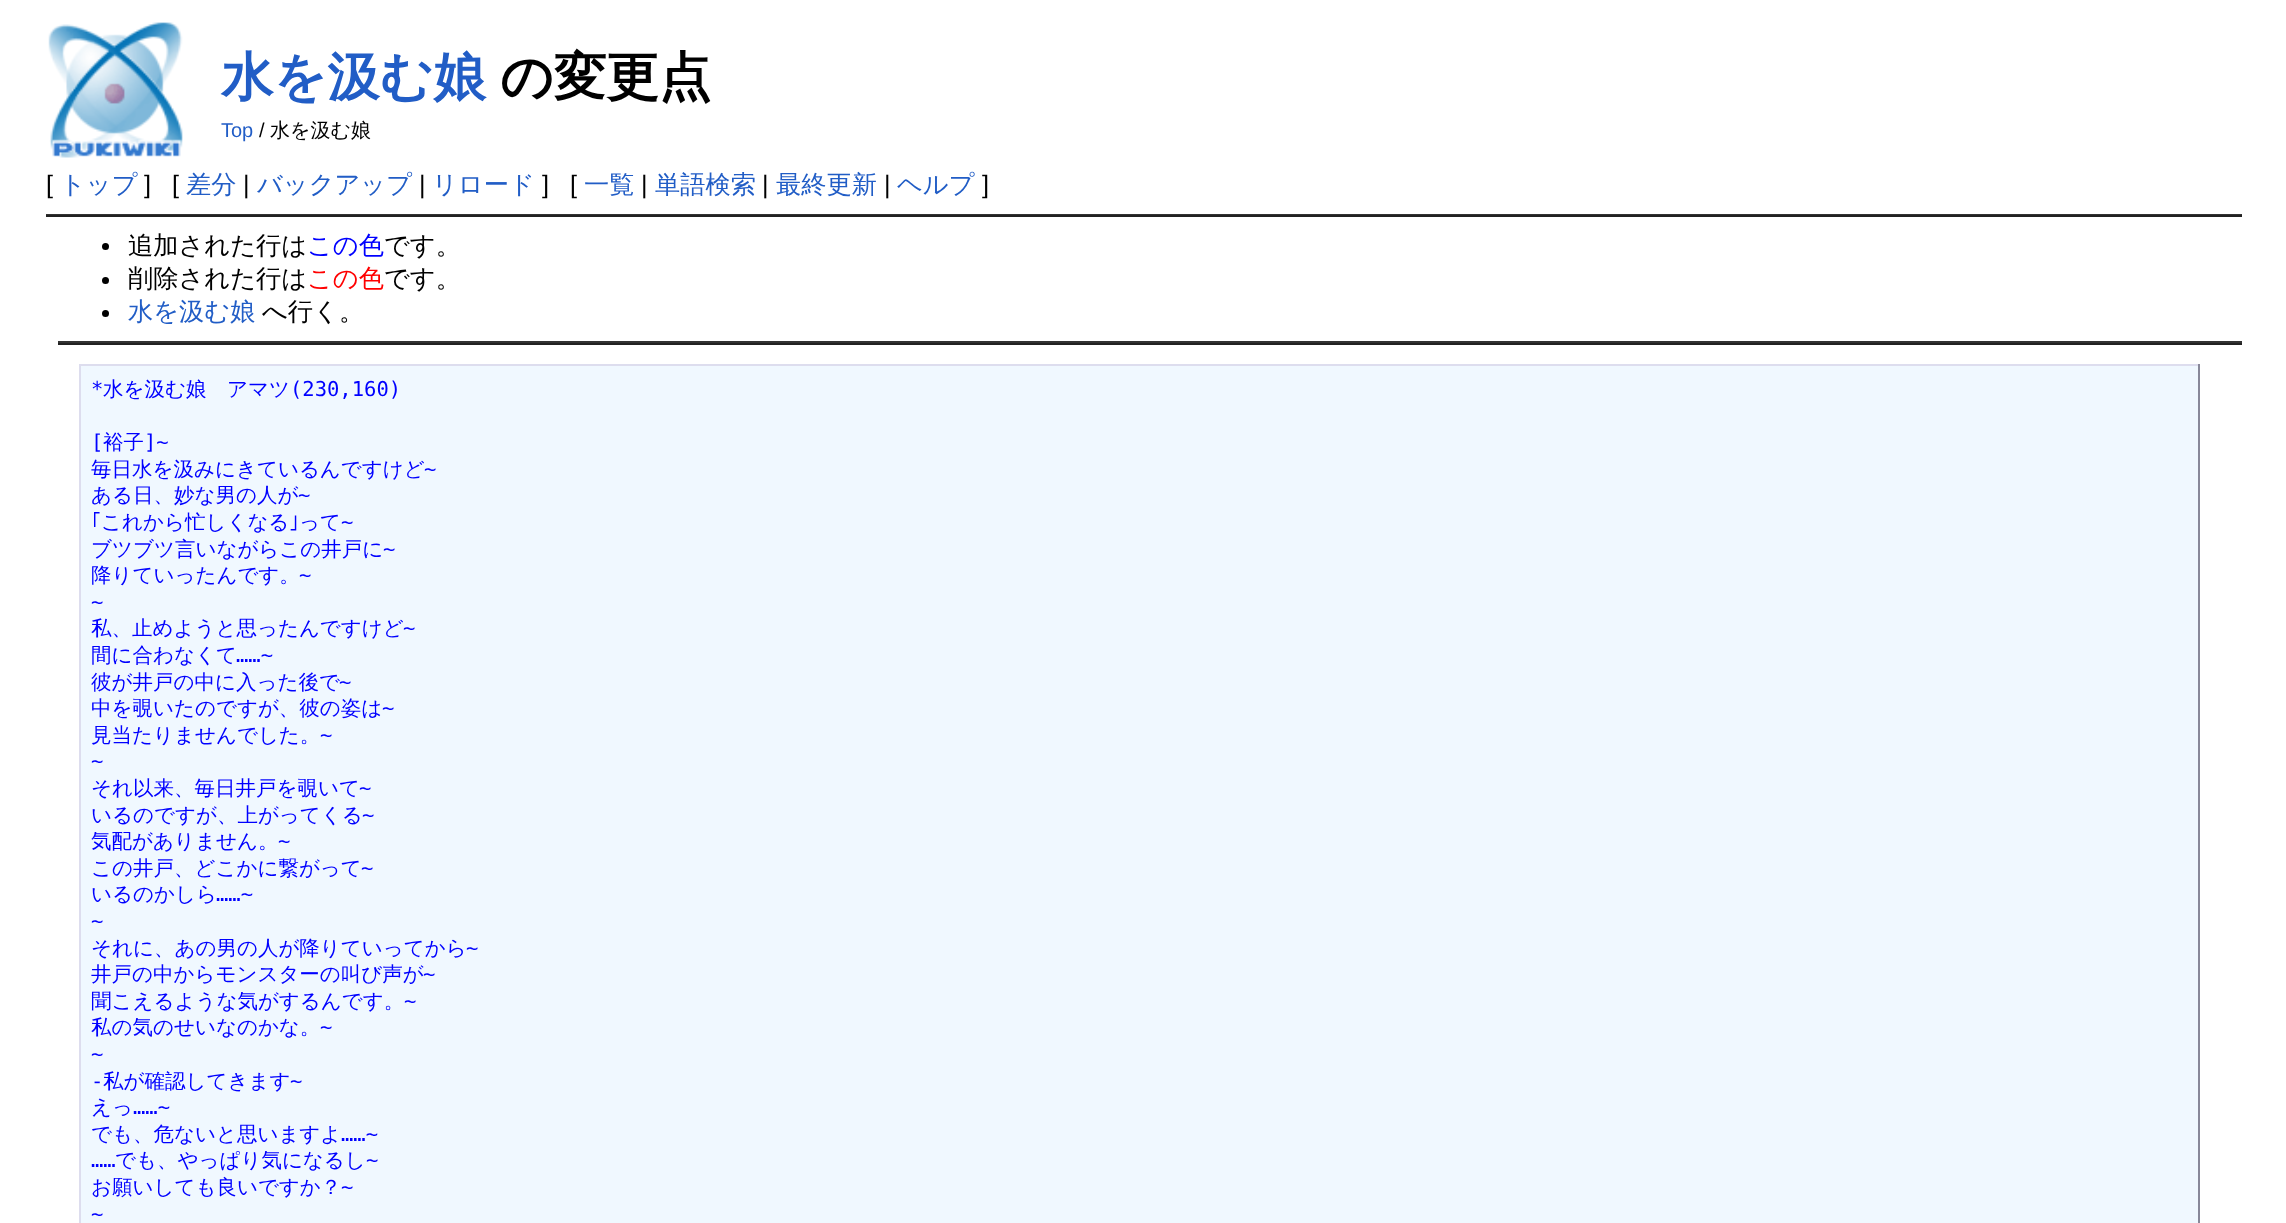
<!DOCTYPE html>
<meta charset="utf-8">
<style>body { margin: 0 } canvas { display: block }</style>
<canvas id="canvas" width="2286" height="1223"></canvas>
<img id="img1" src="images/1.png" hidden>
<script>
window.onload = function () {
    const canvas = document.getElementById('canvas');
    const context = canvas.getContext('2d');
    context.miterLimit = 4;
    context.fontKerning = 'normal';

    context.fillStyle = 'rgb(255, 255, 255)';
    context.fillRect(0, 0, 2286, 1223);
    context.drawImage(document.getElementById('img1'), 48, 22, 135, 136);
    context.fillStyle = 'rgb(51, 51, 51)';
    context.fillRect(46, 214, 2196, 1);
    context.fillStyle = 'rgb(34, 34, 34)';
    context.fillRect(46, 215, 2196, 2);
    context.fillStyle = 'rgb(0, 0, 0)';
    context.beginPath();
    context.arc(105.5, 246.5, 3.5, 0, 2 * Math.PI);
    context.fill();
    context.beginPath();
    context.arc(105.5, 280.5, 3.5, 0, 2 * Math.PI);
    context.fill();
    context.beginPath();
    context.arc(105.5, 313.5, 3.5, 0, 2 * Math.PI);
    context.fill();
    context.fillStyle = 'rgb(51, 51, 51)';
    context.fillRect(58, 341, 2184, 2);
    context.fillStyle = 'rgb(34, 34, 34)';
    context.fillRect(58, 343, 2184, 2);
    context.fillStyle = 'rgb(240, 248, 255)';
    context.fillRect(81, 366, 2117, 857);
    context.fillStyle = 'rgb(221, 221, 238)';
    context.fillRect(79, 364, 2121, 2);
    context.fillStyle = 'rgb(136, 136, 153)';
    context.fillRect(2198, 364, 2, 859);
    context.fillStyle = 'rgb(221, 221, 238)';
    context.fillRect(79, 364, 2, 859);
    context.font = 'bold 52.5px WenQuanYi Zen Hei';
    context.fillStyle = 'rgb(33, 93, 198)';
    context.fillText('水を汲む娘', 221, 95);
    context.fillStyle = 'rgb(0, 0, 0)';
    context.fillText('の変更点', 500, 95);
    context.font = '20px Liberation Sans';
    context.fillStyle = 'rgb(33, 93, 198)';
    context.fillText('Top', 221, 137);
    context.fillStyle = 'rgb(0, 0, 0)';
    context.fillText('/', 259, 137);
    context.font = '500 20px WenQuanYi Zen Hei';
    context.fillText('水を汲む娘', 270, 137);
    context.font = '25.25px Liberation Sans';
    context.fillText('[', 46, 193);
    context.font = '500 25.25px WenQuanYi Zen Hei';
    context.fillStyle = 'rgb(33, 93, 198)';
    context.fillText('トップ', 60, 193);
    context.font = '25.25px Liberation Sans';
    context.fillStyle = 'rgb(0, 0, 0)';
    context.fillText(']', 144, 193);
    context.fillText('[', 172, 193);
    context.font = '500 25.25px WenQuanYi Zen Hei';
    context.fillStyle = 'rgb(33, 93, 198)';
    context.fillText('差分', 186, 193);
    context.font = '25.25px Liberation Sans';
    context.fillStyle = 'rgb(0, 0, 0)';
    context.fillText('|', 243, 193);
    context.font = '500 25.25px WenQuanYi Zen Hei';
    context.fillStyle = 'rgb(33, 93, 198)';
    context.fillText('バックアップ', 257, 193);
    context.font = '25.25px Liberation Sans';
    context.fillStyle = 'rgb(0, 0, 0)';
    context.fillText('|', 419, 193);
    context.font = '500 25.25px WenQuanYi Zen Hei';
    context.fillStyle = 'rgb(33, 93, 198)';
    context.fillText('リロード', 432, 193);
    context.font = '25.25px Liberation Sans';
    context.fillStyle = 'rgb(0, 0, 0)';
    context.fillText(']', 542, 193);
    context.fillText('[', 570, 193);
    context.font = '500 25.25px WenQuanYi Zen Hei';
    context.fillStyle = 'rgb(33, 93, 198)';
    context.fillText('一覧', 584, 193);
    context.font = '25.25px Liberation Sans';
    context.fillStyle = 'rgb(0, 0, 0)';
    context.fillText('|', 641, 193);
    context.font = '500 25.25px WenQuanYi Zen Hei';
    context.fillStyle = 'rgb(33, 93, 198)';
    context.fillText('単語検索', 655, 193);
    context.font = '25.25px Liberation Sans';
    context.fillStyle = 'rgb(0, 0, 0)';
    context.fillText('|', 762, 193);
    context.font = '500 25.25px WenQuanYi Zen Hei';
    context.fillStyle = 'rgb(33, 93, 198)';
    context.fillText('最終更新', 776, 193);
    context.font = '25.25px Liberation Sans';
    context.fillStyle = 'rgb(0, 0, 0)';
    context.fillText('|', 884, 193);
    context.font = '500 25.25px WenQuanYi Zen Hei';
    context.fillStyle = 'rgb(33, 93, 198)';
    context.fillText('ヘルプ', 897, 193);
    context.font = '25.25px Liberation Sans';
    context.fillStyle = 'rgb(0, 0, 0)';
    context.fillText(']', 982, 193);
    context.font = '500 25.25px WenQuanYi Zen Hei';
    context.fillText('追加された行は', 128, 254);
    context.fillStyle = 'rgb(0, 0, 255)';
    context.fillText('この色', 307, 254);
    context.fillStyle = 'rgb(0, 0, 0)';
    context.fillText('です。', 384, 254);
    context.fillText('削除された行は', 128, 287);
    context.fillStyle = 'rgb(255, 0, 0)';
    context.fillText('この色', 307, 287);
    context.fillStyle = 'rgb(0, 0, 0)';
    context.fillText('です。', 384, 287);
    context.fillStyle = 'rgb(33, 93, 198)';
    context.fillText('水を汲む娘', 128, 320);
    context.fillStyle = 'rgb(0, 0, 0)';
    context.fillText('へ行く。', 262, 320);
    context.font = '20.5px DejaVu Sans Mono';
    context.fillStyle = 'rgb(0, 0, 255)';
    context.fillText('*', 91, 396);
    context.font = '500 20.5px WenQuanYi Zen Hei';
    context.fillText('水を汲む娘　アマツ', 103, 396);
    context.font = '20.5px DejaVu Sans Mono';
    context.fillText('(230,160)', 290, 396);
    context.fillText('[', 91, 449);
    context.font = '500 20.5px WenQuanYi Zen Hei';
    context.fillText('裕子', 103, 449);
    context.font = '20.5px DejaVu Sans Mono';
    context.fillText(']~', 144, 449);
    context.font = '500 20.5px WenQuanYi Zen Hei';
    context.fillText('毎日水を汲みにきているんですけど', 91, 476);
    context.font = '20.5px DejaVu Sans Mono';
    context.fillText('~', 424, 476);
    context.font = '500 20.5px WenQuanYi Zen Hei';
    context.fillText('ある日、妙な男の人が', 91, 502);
    context.font = '20.5px DejaVu Sans Mono';
    context.fillText('~', 298, 502);
    context.font = '20.5px IPAGothic';
    context.fillText('｢', 91, 529);
    context.font = '500 20.5px WenQuanYi Zen Hei';
    context.fillText('これから忙しくなる', 101, 529);
    context.font = '20.5px IPAGothic';
    context.fillText('｣', 289, 529);
    context.font = '500 20.5px WenQuanYi Zen Hei';
    context.fillText('って', 299, 529);
    context.font = '20.5px DejaVu Sans Mono';
    context.fillText('~', 341, 529);
    context.font = '500 20.5px WenQuanYi Zen Hei';
    context.fillText('ブツブツ言いながらこの井戸に', 91, 556);
    context.font = '20.5px DejaVu Sans Mono';
    context.fillText('~', 383, 556);
    context.font = '500 20.5px WenQuanYi Zen Hei';
    context.fillText('降りていったんです。', 91, 582);
    context.font = '20.5px DejaVu Sans Mono';
    context.fillText('~', 299, 582);
    context.fillText('~', 91, 609);
    context.font = '500 20.5px WenQuanYi Zen Hei';
    context.fillText('私、止めようと思ったんですけど', 91, 635);
    context.font = '20.5px DejaVu Sans Mono';
    context.fillText('~', 403, 635);
    context.font = '500 20.5px WenQuanYi Zen Hei';
    context.fillText('間に合わなくて', 91, 662);
    context.font = '20.5px DejaVu Sans Mono';
    context.fillText('……~', 236, 662);
    context.font = '500 20.5px WenQuanYi Zen Hei';
    context.fillText('彼が井戸の中に入った後で', 91, 689);
    context.font = '20.5px DejaVu Sans Mono';
    context.fillText('~', 339, 689);
    context.font = '500 20.5px WenQuanYi Zen Hei';
    context.fillText('中を覗いたのですが、彼の姿は', 91, 715);
    context.font = '20.5px DejaVu Sans Mono';
    context.fillText('~', 382, 715);
    context.font = '500 20.5px WenQuanYi Zen Hei';
    context.fillText('見当たりませんでした。', 91, 742);
    context.font = '20.5px DejaVu Sans Mono';
    context.fillText('~', 320, 742);
    context.fillText('~', 91, 768);
    context.font = '500 20.5px WenQuanYi Zen Hei';
    context.fillText('それ以来、毎日井戸を覗いて', 91, 795);
    context.font = '20.5px DejaVu Sans Mono';
    context.fillText('~', 359, 795);
    context.font = '500 20.5px WenQuanYi Zen Hei';
    context.fillText('いるのですが、上がってくる', 91, 822);
    context.font = '20.5px DejaVu Sans Mono';
    context.fillText('~', 362, 822);
    context.font = '500 20.5px WenQuanYi Zen Hei';
    context.fillText('気配がありません。', 91, 848);
    context.font = '20.5px DejaVu Sans Mono';
    context.fillText('~', 278, 848);
    context.font = '500 20.5px WenQuanYi Zen Hei';
    context.fillText('この井戸、どこかに繋がって', 91, 875);
    context.font = '20.5px DejaVu Sans Mono';
    context.fillText('~', 361, 875);
    context.font = '500 20.5px WenQuanYi Zen Hei';
    context.fillText('いるのかしら', 91, 901);
    context.font = '20.5px DejaVu Sans Mono';
    context.fillText('……~', 216, 901);
    context.fillText('~', 91, 928);
    context.font = '500 20.5px WenQuanYi Zen Hei';
    context.fillText('それに、あの男の人が降りていってから', 91, 955);
    context.font = '20.5px DejaVu Sans Mono';
    context.fillText('~', 466, 955);
    context.font = '500 20.5px WenQuanYi Zen Hei';
    context.fillText('井戸の中からモンスターの叫び声が', 91, 981);
    context.font = '20.5px DejaVu Sans Mono';
    context.fillText('~', 423, 981);
    context.font = '500 20.5px WenQuanYi Zen Hei';
    context.fillText('聞こえるような気がするんです。', 91, 1008);
    context.font = '20.5px DejaVu Sans Mono';
    context.fillText('~', 404, 1008);
    context.font = '500 20.5px WenQuanYi Zen Hei';
    context.fillText('私の気のせいなのかな。', 91, 1034);
    context.font = '20.5px DejaVu Sans Mono';
    context.fillText('~', 320, 1034);
    context.fillText('~', 91, 1061);
    context.fillText('-', 91, 1088);
    context.font = '500 20.5px WenQuanYi Zen Hei';
    context.fillText('私が確認してきます', 103, 1088);
    context.font = '20.5px DejaVu Sans Mono';
    context.fillText('~', 290, 1088);
    context.font = '500 20.5px WenQuanYi Zen Hei';
    context.fillText('えっ', 91, 1114);
    context.font = '20.5px DejaVu Sans Mono';
    context.fillText('……~', 133, 1114);
    context.font = '500 20.5px WenQuanYi Zen Hei';
    context.fillText('でも、危ないと思いますよ', 91, 1141);
    context.font = '20.5px DejaVu Sans Mono';
    context.fillText('……~', 341, 1141);
    context.font = '500 20.5px WenQuanYi Zen Hei';
    context.fillText('でも、やっぱり気になるし', 115, 1167);
    context.font = '20.5px DejaVu Sans Mono';
    context.fillText('~', 366, 1167);
    context.fillText('……', 91, 1167);
    context.font = '500 20.5px WenQuanYi Zen Hei';
    context.fillText('お願いしても良いですか？', 91, 1194);
    context.font = '20.5px DejaVu Sans Mono';
    context.fillText('~', 341, 1194);
    context.fillText('~', 91, 1221);
};
</script>
